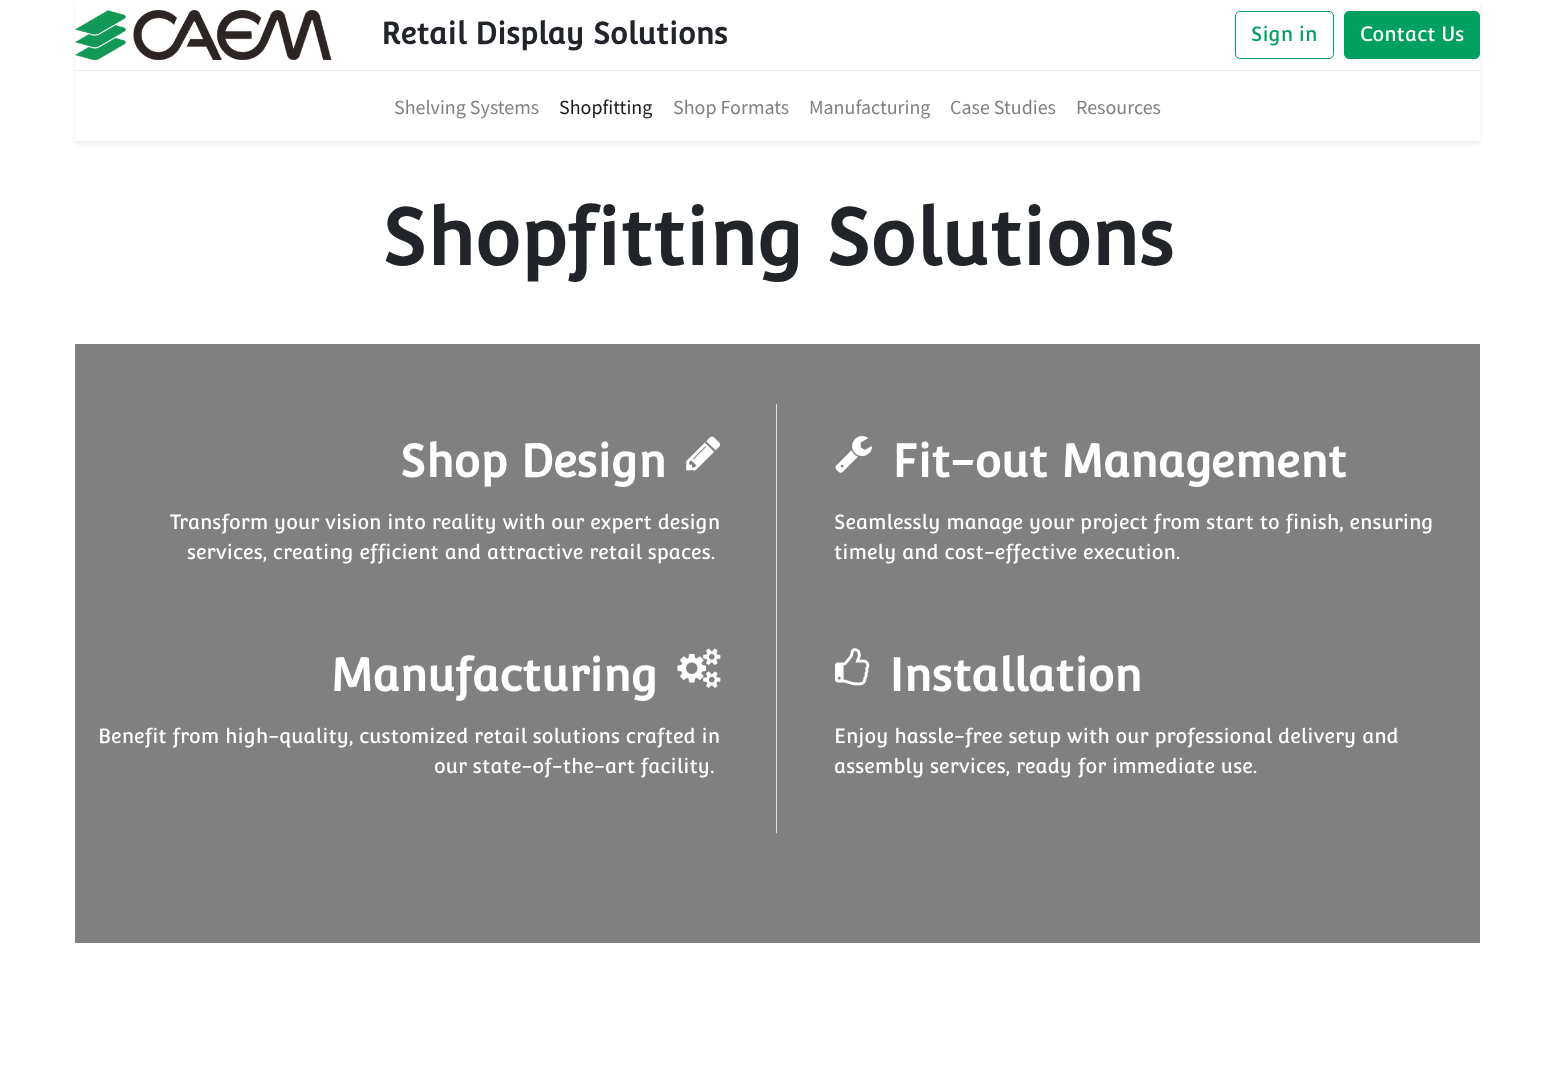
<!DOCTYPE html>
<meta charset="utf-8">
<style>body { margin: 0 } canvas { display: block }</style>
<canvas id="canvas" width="1555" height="1091"></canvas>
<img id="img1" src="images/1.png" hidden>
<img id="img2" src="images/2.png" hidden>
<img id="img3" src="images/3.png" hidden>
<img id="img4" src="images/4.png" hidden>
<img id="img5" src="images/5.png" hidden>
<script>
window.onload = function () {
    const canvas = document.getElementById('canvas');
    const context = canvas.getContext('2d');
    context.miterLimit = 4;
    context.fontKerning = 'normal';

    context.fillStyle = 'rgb(255, 255, 255)';
    context.fillRect(0, 0, 1555, 1091);
    context.save();
    context.beginPath();
    context.moveTo(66, 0);
    context.lineTo(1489, 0);
    context.lineTo(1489, 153);
    context.lineTo(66, 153);
    context.closePath();
    context.moveTo(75, 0);
    context.lineTo(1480, 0);
    context.lineTo(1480, 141);
    context.lineTo(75, 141);
    context.closePath();
    context.clip('evenodd');
    context.fillStyle = 'rgba(0, 0, 0, 0.07)';
    context.filter = 'blur(2.5px)';
    context.beginPath();
    context.rect(75, 3, 1405, 141);
    context.fill();
    context.filter = 'none';
    context.restore();
    context.drawImage(document.getElementById('img1'), 75, 10, 257, 50);
    context.beginPath();
    context.roundRect(1235.5, 11.5, 98, 47, 4.5);
    context.strokeStyle = 'rgb(0, 161, 96)';
    context.stroke();
    context.fillStyle = 'rgb(0, 161, 96)';
    context.beginPath();
    context.roundRect(1344.5, 11.5, 135, 47, 4.5);
    context.fill();
    context.stroke();
    context.fillStyle = 'rgb(233, 236, 239)';
    context.fillRect(75, 70, 1405, 1);
    context.fillStyle = 'rgb(128, 128, 128)';
    context.fillRect(75, 344, 1405, 599);
    context.drawImage(document.getElementById('img2'), 686, 436, 34, 35);
    context.drawImage(document.getElementById('img3'), 677, 648, 44, 40);
    context.fillStyle = 'rgb(222, 226, 230)';
    context.fillRect(776, 404, 1, 429);
    context.drawImage(document.getElementById('img4'), 835, 436, 38, 37);
    context.drawImage(document.getElementById('img5'), 835, 648, 35, 38);
    context.font = 'bold 30px Convergence';
    context.fillStyle = 'rgb(33, 37, 41)';
    context.fillText('Retail Display Solutions', 381, 44);
    context.font = '20px Convergence';
    context.fillStyle = 'rgb(0, 161, 96)';
    context.fillText('Sign in', 1251, 41);
    context.fillStyle = 'rgb(255, 255, 255)';
    context.fillText('Contact Us', 1360, 41);
    context.font = '20px Source Sans Pro';
    context.fillStyle = 'rgb(128, 128, 128)';
    context.fillText('Shelving Systems', 394, 114);
    context.fillStyle = 'rgb(26, 26, 26)';
    context.fillText('Shopfitting', 559, 114);
    context.fillStyle = 'rgb(128, 128, 128)';
    context.fillText('Shop Formats', 673, 114);
    context.fillText('Manufacturing', 809, 114);
    context.fillText('Case Studies', 950, 114);
    context.fillText('Resources', 1076, 114);
    context.font = 'bold 77.5px Convergence';
    context.fillStyle = 'rgb(33, 37, 41)';
    context.fillText('Shopfitting Solutions', 382, 265);
    context.font = 'bold 45px Convergence';
    context.fillStyle = 'rgb(255, 255, 255)';
    context.fillText('Shop Design', 400, 477);
    context.font = '20px Convergence';
    context.fillText('Transform your vision into reality with our expert design', 170, 529);
    context.fillText('services, creating efficient and attractive retail spaces.', 187, 559);
    context.font = 'bold 45px Convergence';
    context.fillText('Manufacturing', 330, 691);
    context.font = '20px Convergence';
    context.fillText('Benefit from high-quality, customized retail solutions crafted in', 98, 743);
    context.fillText('our state-of-the-art facility.', 434, 773);
    context.font = 'bold 45px Convergence';
    context.fillText('Fit-out Management', 892, 477);
    context.font = '20px Convergence';
    context.fillText('Seamlessly manage your project from start to finish, ensuring', 834, 529);
    context.fillText('timely and cost-effective execution.', 834, 559);
    context.font = 'bold 45px Convergence';
    context.fillText('Installation', 889, 691);
    context.font = '20px Convergence';
    context.fillText('Enjoy hassle-free setup with our professional delivery and', 834, 743);
    context.fillText('assembly services, ready for immediate use.', 834, 773);
};
</script>
